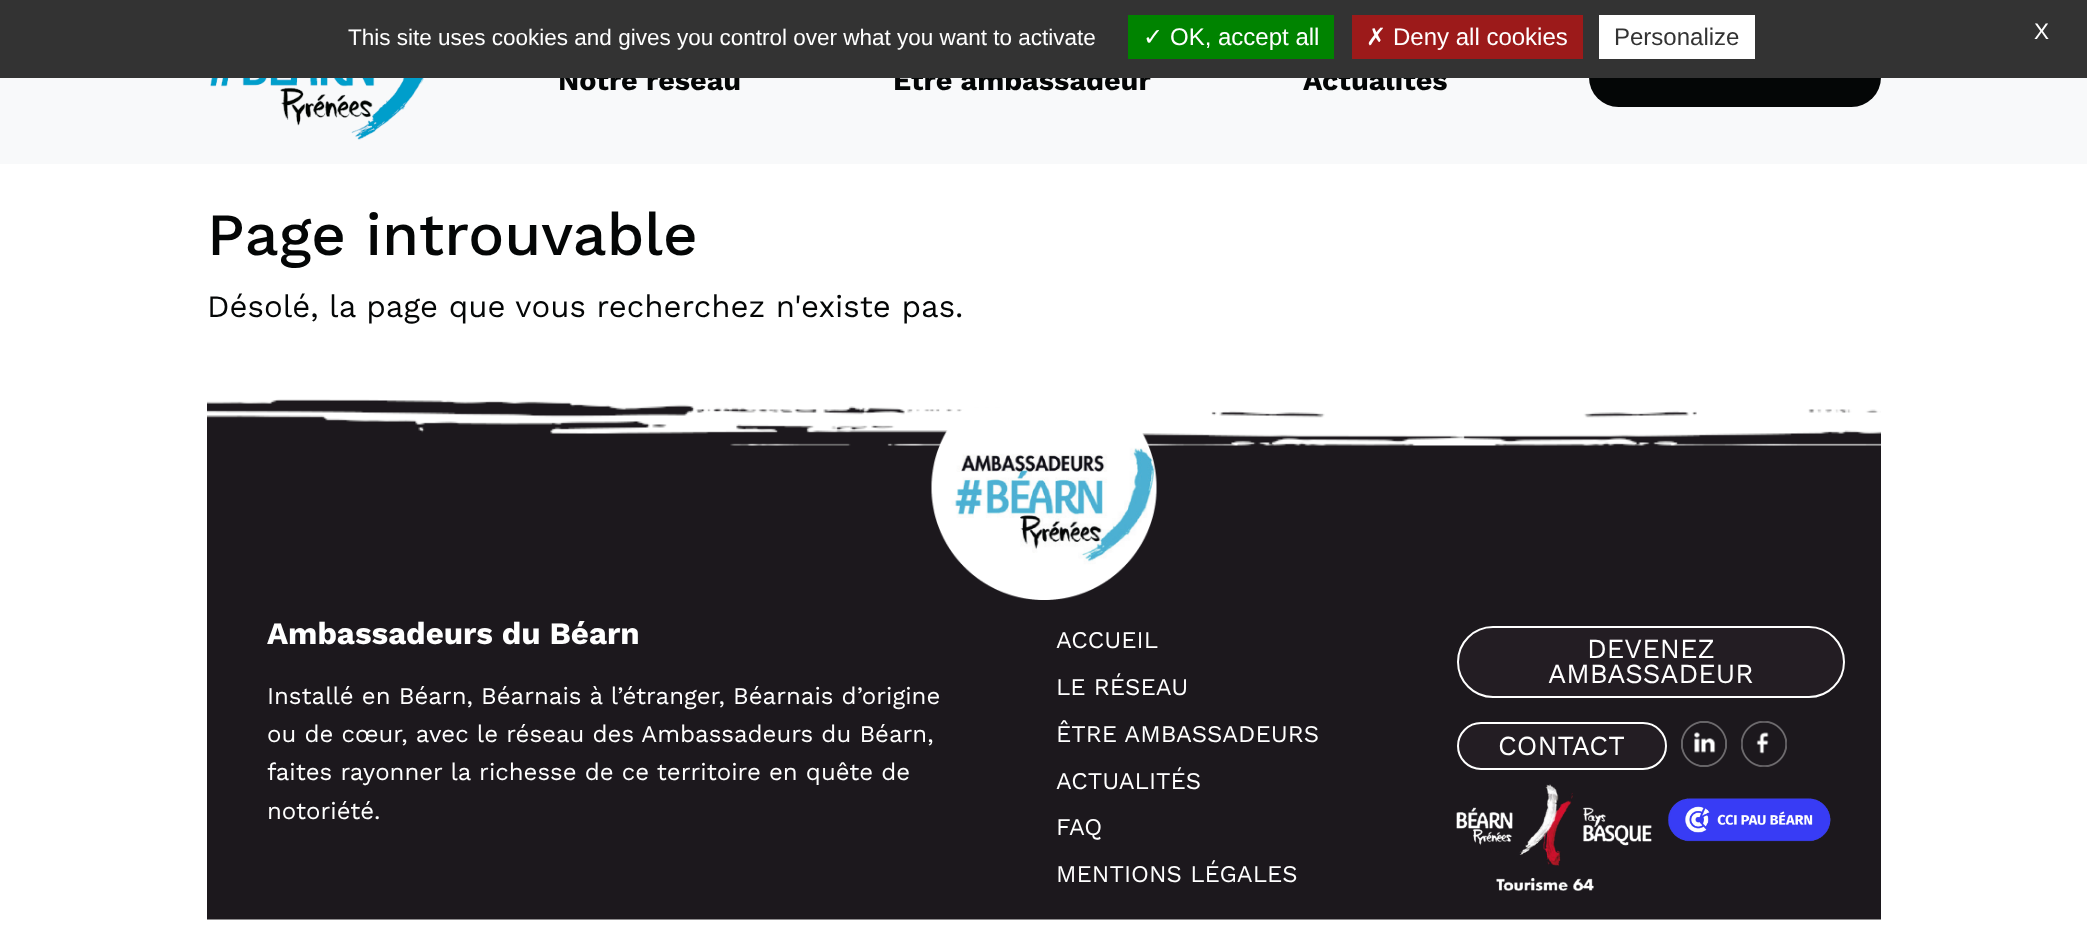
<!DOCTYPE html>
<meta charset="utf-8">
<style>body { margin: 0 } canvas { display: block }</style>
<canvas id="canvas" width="2087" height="930"></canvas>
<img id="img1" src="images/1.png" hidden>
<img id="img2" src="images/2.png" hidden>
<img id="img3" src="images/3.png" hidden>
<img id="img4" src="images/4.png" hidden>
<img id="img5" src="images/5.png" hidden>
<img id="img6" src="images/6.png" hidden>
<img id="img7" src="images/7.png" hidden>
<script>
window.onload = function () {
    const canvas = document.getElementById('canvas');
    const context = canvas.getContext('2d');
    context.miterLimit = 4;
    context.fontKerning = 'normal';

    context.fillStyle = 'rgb(255, 255, 255)';
    context.fillRect(0, 0, 2087, 930);
    context.fillStyle = 'rgb(248, 249, 250)';
    context.fillRect(0, 78, 2087, 86);
    context.drawImage(document.getElementById('img1'), 210, 78, 214, 62);
    context.fillStyle = 'rgb(4, 6, 6)';
    context.beginPath();
    context.roundRect(1589, 48, 292, 59, 29.5);
    context.fill();
    context.drawImage(document.getElementById('img2'), 207, 399, 1674, 521);
    context.drawImage(document.getElementById('img3'), 931, 408, 226, 192);
    context.fillStyle = 'rgb(35, 29, 35)';
    context.beginPath();
    context.roundRect(1458, 627, 386, 70, 35);
    context.fill();
    context.strokeStyle = 'rgb(255, 255, 255)';
    context.lineWidth = 2;
    context.stroke();
    context.beginPath();
    context.roundRect(1458, 723, 208, 46, 23);
    context.fill();
    context.stroke();
    context.drawImage(document.getElementById('img4'), 1681, 721, 46, 46);
    context.drawImage(document.getElementById('img5'), 1741, 721, 46, 46);
    context.drawImage(document.getElementById('img6'), 1456, 784, 196, 107);
    context.drawImage(document.getElementById('img7'), 1668, 798, 163, 44);
    context.font = 'bold 28.75px Work Sans';
    context.fillStyle = 'rgb(4, 6, 6)';
    context.fillText('Notre réseau', 558, 90);
    context.fillText('Être ambassadeur', 893, 90);
    context.fillText('Actualités', 1303, 90);
    context.fillStyle = 'rgb(51, 51, 51)';
    context.fillRect(0, 0, 2087, 78);
    context.font = '22.5px Liberation Sans';
    context.fillStyle = 'rgb(255, 255, 255)';
    context.fillText('X', 2034, 39);
    context.fillRect(1599, 15, 156, 44);
    context.font = '24px Liberation Sans';
    context.fillStyle = 'rgb(51, 51, 51)';
    context.fillText('Personalize', 1614, 45);
    context.fillStyle = 'rgb(156, 26, 26)';
    context.fillRect(1352, 15, 231, 44);
    context.fillStyle = 'rgb(255, 255, 255)';
    context.fillText('Deny all cookies', 1393, 45);
    context.font = '24px DejaVu Sans';
    context.fillText('✗', 1366, 45);
    context.fillStyle = 'rgb(0, 131, 0)';
    context.fillRect(1128, 15, 206, 44);
    context.font = '24px Liberation Sans';
    context.fillStyle = 'rgb(255, 255, 255)';
    context.fillText('OK, accept all', 1170, 45);
    context.font = '24px DejaVu Sans';
    context.fillText('✓', 1143, 45);
    context.font = '22.5px Liberation Sans';
    context.fillText('This site uses cookies and gives you control over what you want to activate', 348, 45);
    context.font = '500 60px Work Sans';
    context.fillStyle = 'rgb(4, 6, 6)';
    context.fillText('Page introuvable', 207, 255);
    context.font = '31.2px Work Sans';
    context.fillText('Désolé, la page que vous recherchez n\'existe pas.', 207, 317);
    context.font = 'bold 31.2px Work Sans';
    context.fillStyle = 'rgb(255, 255, 255)';
    context.fillText('Ambassadeurs du Béarn', 267, 644);
    context.font = '24px Work Sans';
    context.fillText('Installé en Béarn, Béarnais à l’étranger, Béarnais d’origine', 267, 704);
    context.fillText('ou de cœur, avec le réseau des Ambassadeurs du Béarn,', 267, 742);
    context.fillText('faites rayonner la richesse de ce territoire en quête de', 267, 780);
    context.fillText('notoriété.', 267, 819);
    context.fillText('ACCUEIL', 1056, 648);
    context.fillText('LE RÉSEAU', 1056, 695);
    context.fillText('ÊTRE AMBASSADEURS', 1056, 742);
    context.fillText('ACTUALITÉS', 1056, 789);
    context.fillText('FAQ', 1056, 835);
    context.fillText('MENTIONS LÉGALES', 1056, 882);
    context.font = '27.5px Work Sans';
    context.fillText('DEVENEZ', 1587, 658);
    context.fillText('AMBASSADEUR', 1548, 683);
    context.fillText('CONTACT', 1498, 755);
};
</script>
